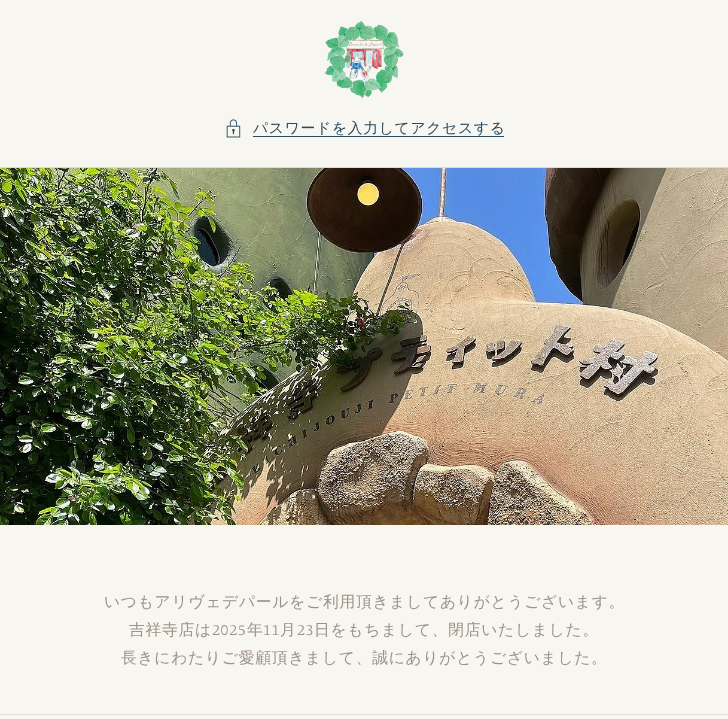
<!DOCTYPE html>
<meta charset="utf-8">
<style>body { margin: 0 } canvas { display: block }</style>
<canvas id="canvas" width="728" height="719"></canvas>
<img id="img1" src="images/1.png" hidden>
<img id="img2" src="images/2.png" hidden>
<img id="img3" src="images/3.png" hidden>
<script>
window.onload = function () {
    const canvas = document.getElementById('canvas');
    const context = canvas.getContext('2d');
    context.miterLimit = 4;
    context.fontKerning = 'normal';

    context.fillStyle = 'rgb(247, 246, 240)';
    context.fillRect(0, 0, 728, 719);
    context.drawImage(document.getElementById('img1'), 324, 21, 80, 78);
    context.drawImage(document.getElementById('img2'), 226, 119, 15, 19);
    context.fillStyle = 'rgb(41, 74, 96)';
    context.fillRect(253, 136, 251, 1);
    context.fillStyle = 'rgb(223, 219, 212)';
    context.fillRect(0, 167, 728, 1);
    context.drawImage(document.getElementById('img3'), 0, 168, 728, 357);
    context.fillRect(0, 714, 728, 1);
    context.letterSpacing = '0.75px';
    context.font = '500 14.75px WenQuanYi Zen Hei';
    context.fillStyle = 'rgb(41, 74, 96)';
    context.fillText('パスワードを入力してアクセスする', 253, 133);
    context.font = '500 15.75px WenQuanYi Zen Hei';
    context.fillStyle = 'rgb(158, 146, 135)';
    context.fillText('いつもアリヴェデパールをご利用頂きましてありがとうございます。', 104, 607);
    context.fillText('吉祥寺店は', 129, 635);
    context.font = '300 15.75px Manuale';
    context.fillText('2025', 212, 635);
    context.font = '500 15.75px WenQuanYi Zen Hei';
    context.fillText('年', 247, 635);
    context.font = '300 15.75px Manuale';
    context.fillText('11', 263, 635);
    context.font = '500 15.75px WenQuanYi Zen Hei';
    context.fillText('月', 280, 635);
    context.font = '300 15.75px Manuale';
    context.fillText('23', 297, 635);
    context.font = '500 15.75px WenQuanYi Zen Hei';
    context.fillText('日をもちまして、閉店いたしました。', 314, 635);
    context.fillText('長きにわたりご愛顧頂きまして、誠にありがとうございました。', 121, 663);
};
</script>
